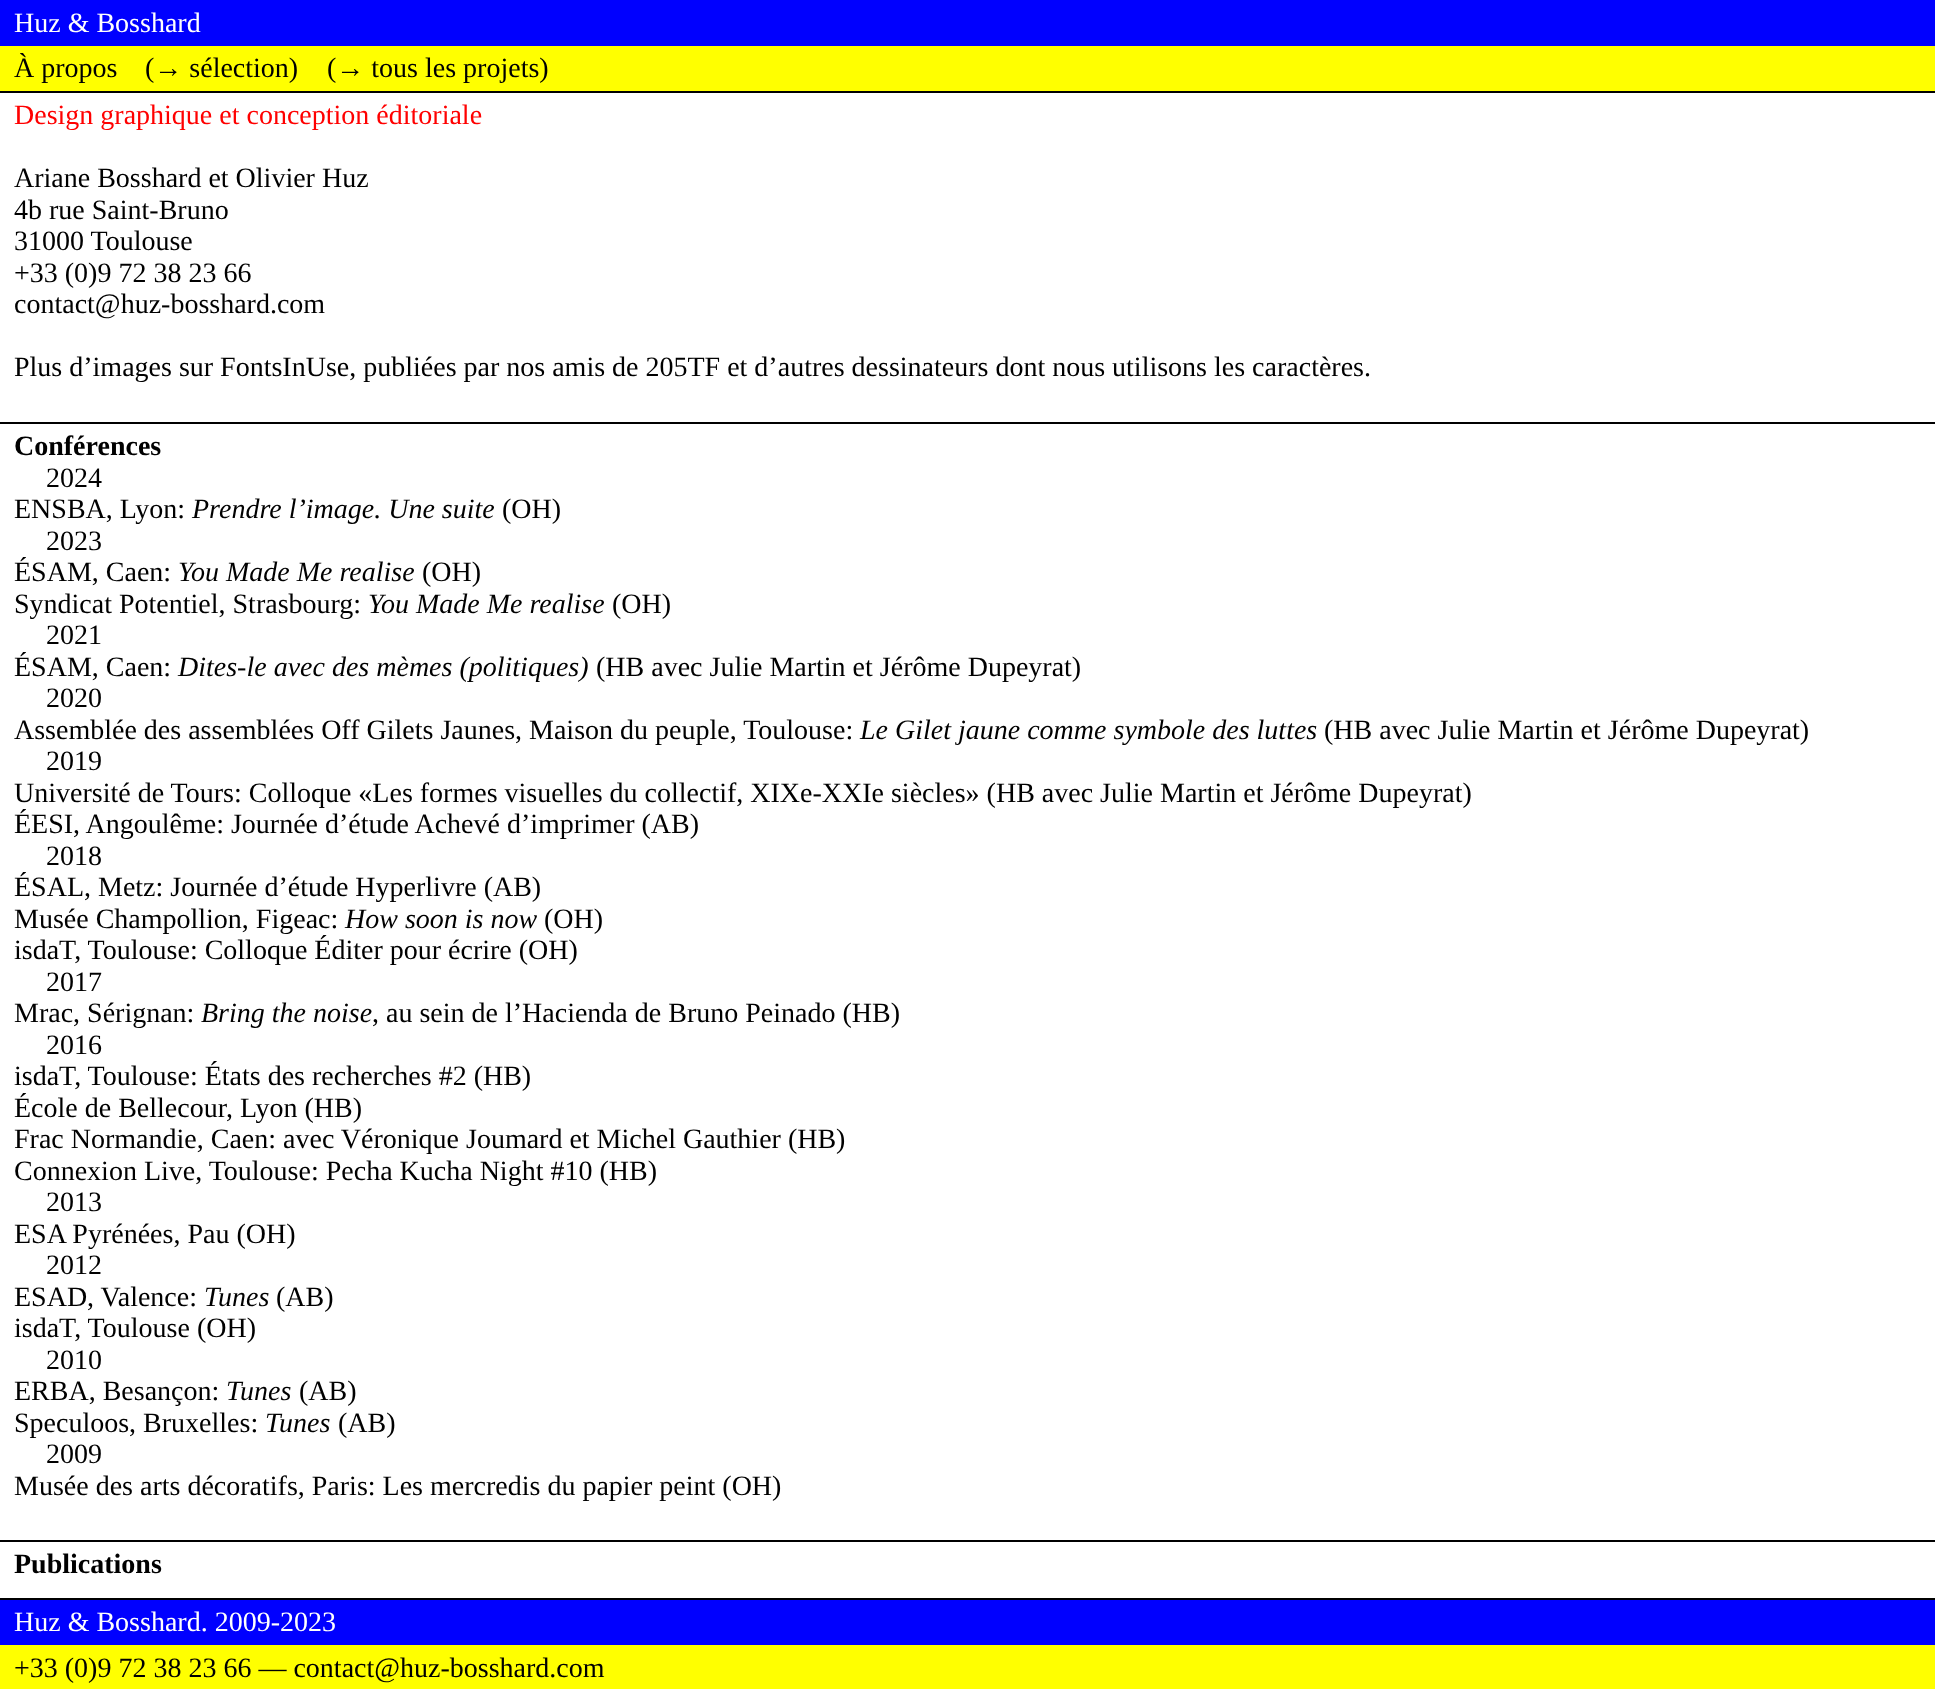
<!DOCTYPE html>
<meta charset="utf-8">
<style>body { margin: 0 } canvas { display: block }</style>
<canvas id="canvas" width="1935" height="1689"></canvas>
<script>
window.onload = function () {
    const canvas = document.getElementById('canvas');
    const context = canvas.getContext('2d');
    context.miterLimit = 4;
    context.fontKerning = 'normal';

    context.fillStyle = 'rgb(255, 255, 255)';
    context.fillRect(0, 0, 1935, 1689);
    context.fillStyle = 'rgb(0, 0, 0)';
    context.fillRect(0, 91, 1935, 2);
    context.fillStyle = 'rgb(0, 0, 255)';
    context.fillRect(0, 0, 1935, 46);
    context.fillStyle = 'rgb(255, 255, 0)';
    context.fillRect(0, 46, 1935, 45);
    context.fillStyle = 'rgb(0, 0, 0)';
    context.fillRect(0, 422, 1935, 2);
    context.fillRect(0, 1540, 1935, 2);
    context.fillRect(0, 1598, 1935, 2);
    context.fillStyle = 'rgb(0, 0, 255)';
    context.fillRect(0, 1600, 1935, 45);
    context.fillStyle = 'rgb(255, 255, 0)';
    context.fillRect(0, 1645, 1935, 44);
    context.font = '28px Liberation Serif';
    context.fillStyle = 'rgb(255, 255, 255)';
    context.fillText('Huz & Bosshard', 14, 32);
    context.fillStyle = 'rgb(0, 0, 0)';
    context.fillText('À propos', 14, 77);
    context.fillText('(→ sélection)', 145, 77);
    context.fillText('(→ tous les projets)', 327, 77);
    context.fillStyle = 'rgb(255, 0, 0)';
    context.fillText('Design graphique et conception éditoriale', 14, 124);
    context.fillStyle = 'rgb(0, 0, 0)';
    context.fillText('Ariane Bosshard et Olivier Huz', 14, 187);
    context.fillText('4b rue Saint-Bruno', 14, 219);
    context.fillText('31000 Toulouse', 14, 250);
    context.fillText('+33 (0)9 72 38 23 66', 14, 282);
    context.fillText('contact@huz-bosshard.com', 14, 313);
    context.fillText('Plus d’images sur FontsInUse, publiées par nos amis de 205TF et d’autres dessinateurs dont nous utilisons les caractères.', 14, 376);
    context.font = 'bold 28px Liberation Serif';
    context.fillText('Conférences', 14, 455);
    context.font = '28px Liberation Serif';
    context.fillText('2024', 46, 487);
    context.fillText('ENSBA, Lyon:', 14, 518);
    context.font = 'italic 28px Liberation Serif';
    context.fillText('Prendre l’image. Une suite', 192, 518);
    context.font = '28px Liberation Serif';
    context.fillText('(OH)', 502, 518);
    context.fillText('2023', 46, 550);
    context.fillText('ÉSAM, Caen:', 14, 581);
    context.font = 'italic 28px Liberation Serif';
    context.fillText('You Made Me realise', 178, 581);
    context.font = '28px Liberation Serif';
    context.fillText('(OH)', 422, 581);
    context.fillText('Syndicat Potentiel, Strasbourg:', 14, 613);
    context.font = 'italic 28px Liberation Serif';
    context.fillText('You Made Me realise', 368, 613);
    context.font = '28px Liberation Serif';
    context.fillText('(OH)', 612, 613);
    context.fillText('2021', 46, 644);
    context.fillText('ÉSAM, Caen:', 14, 676);
    context.font = 'italic 28px Liberation Serif';
    context.fillText('Dites-le avec des mèmes (politiques)', 178, 676);
    context.font = '28px Liberation Serif';
    context.fillText('(HB avec Julie Martin et Jérôme Dupeyrat)', 596, 676);
    context.fillText('2020', 46, 707);
    context.fillText('Assemblée des assemblées Off Gilets Jaunes, Maison du peuple, Toulouse:', 14, 739);
    context.font = 'italic 28px Liberation Serif';
    context.fillText('Le Gilet jaune comme symbole des luttes', 860, 739);
    context.font = '28px Liberation Serif';
    context.fillText('(HB avec Julie Martin et Jérôme Dupeyrat)', 1324, 739);
    context.fillText('2019', 46, 770);
    context.fillText('Université de Tours: Colloque «Les formes visuelles du collectif, XIXe-XXIe siècles» (HB avec Julie Martin et Jérôme Dupeyrat)', 14, 802);
    context.fillText('ÉESI, Angoulême: Journée d’étude Achevé d’imprimer (AB)', 14, 833);
    context.fillText('2018', 46, 865);
    context.fillText('ÉSAL, Metz: Journée d’étude Hyperlivre (AB)', 14, 896);
    context.fillText('Musée Champollion, Figeac:', 14, 928);
    context.font = 'italic 28px Liberation Serif';
    context.fillText('How soon is now', 345, 928);
    context.font = '28px Liberation Serif';
    context.fillText('(OH)', 544, 928);
    context.fillText('isdaT, Toulouse: Colloque Éditer pour écrire (OH)', 14, 959);
    context.fillText('2017', 46, 991);
    context.fillText('Mrac, Sérignan:', 14, 1022);
    context.font = 'italic 28px Liberation Serif';
    context.fillText('Bring the noise', 201, 1022);
    context.font = '28px Liberation Serif';
    context.fillText(', au sein de l’Hacienda de Bruno Peinado (HB)', 372, 1022);
    context.fillText('2016', 46, 1054);
    context.fillText('isdaT, Toulouse: États des recherches #2 (HB)', 14, 1085);
    context.fillText('École de Bellecour, Lyon (HB)', 14, 1117);
    context.fillText('Frac Normandie, Caen: avec Véronique Joumard et Michel Gauthier (HB)', 14, 1148);
    context.fillText('Connexion Live, Toulouse: Pecha Kucha Night #10 (HB)', 14, 1180);
    context.fillText('2013', 46, 1211);
    context.fillText('ESA Pyrénées, Pau (OH)', 14, 1243);
    context.fillText('2012', 46, 1274);
    context.fillText('ESAD, Valence:', 14, 1306);
    context.font = 'italic 28px Liberation Serif';
    context.fillText('Tunes', 204, 1306);
    context.font = '28px Liberation Serif';
    context.fillText('(AB)', 276, 1306);
    context.fillText('isdaT, Toulouse (OH)', 14, 1337);
    context.fillText('2010', 46, 1369);
    context.fillText('ERBA, Besançon:', 14, 1400);
    context.font = 'italic 28px Liberation Serif';
    context.fillText('Tunes', 226, 1400);
    context.font = '28px Liberation Serif';
    context.fillText('(AB)', 299, 1400);
    context.fillText('Speculoos, Bruxelles:', 14, 1432);
    context.font = 'italic 28px Liberation Serif';
    context.fillText('Tunes', 265, 1432);
    context.font = '28px Liberation Serif';
    context.fillText('(AB)', 338, 1432);
    context.fillText('2009', 46, 1463);
    context.fillText('Musée des arts décoratifs, Paris: Les mercredis du papier peint (OH)', 14, 1495);
    context.font = 'bold 28px Liberation Serif';
    context.fillText('Publications', 14, 1573);
    context.font = '28px Liberation Serif';
    context.fillStyle = 'rgb(255, 255, 255)';
    context.fillText('Huz & Bosshard. 2009-2023', 14, 1631);
    context.fillStyle = 'rgb(0, 0, 0)';
    context.fillText('+33 (0)9 72 38 23 66 — contact@huz-bosshard.com', 14, 1677);
};
</script>
